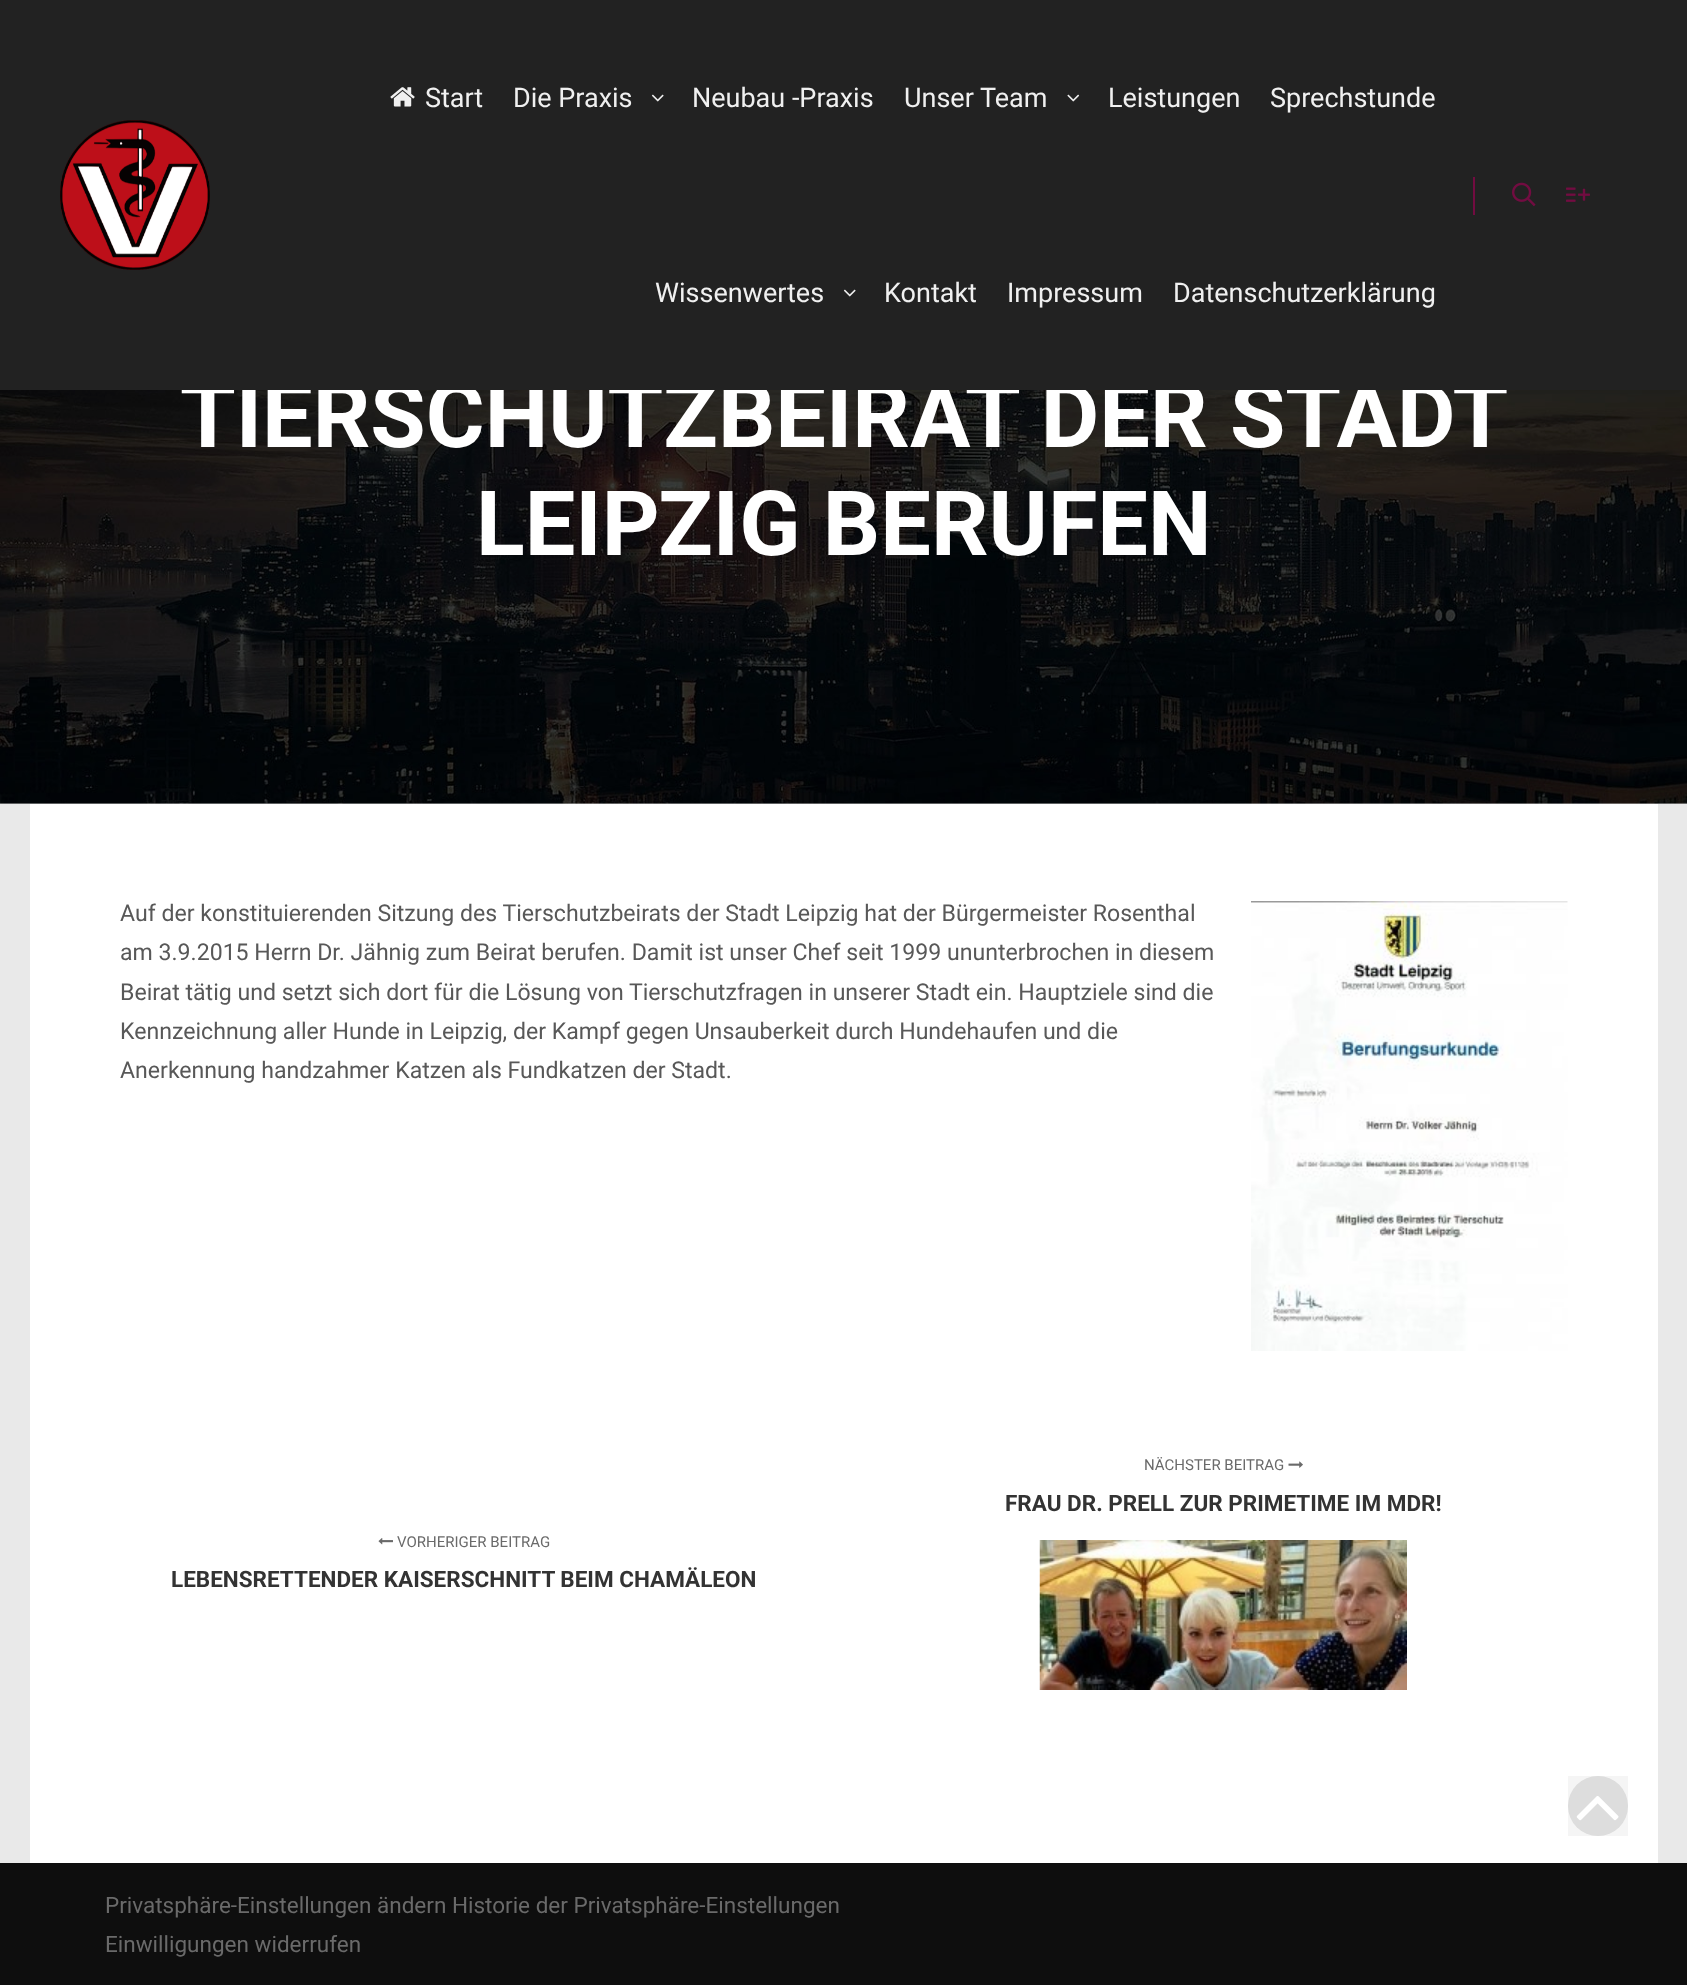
<!DOCTYPE html>
<meta charset="utf-8">
<style>body { margin: 0 } canvas { display: block }</style>
<canvas id="canvas" width="1687" height="1985"></canvas>
<img id="img1" src="images/7.png" hidden>
<img id="img2" src="images/8.png" hidden>
<img id="img3" src="images/9.png" hidden>
<img id="img4" src="images/10.png" hidden>
<img id="img5" src="images/11.png" hidden>
<img id="img6" src="images/12.png" hidden>
<img id="img7" src="images/3.png" hidden>
<img id="img8" src="images/4.png" hidden>
<img id="img9" src="images/2.png" hidden>
<img id="img10" src="images/6.png" hidden>
<img id="img11" src="images/5.png" hidden>
<img id="img12" src="images/1.png" hidden>
<script>
window.onload = function () {
    const canvas = document.getElementById('canvas');
    const context = canvas.getContext('2d');
    context.miterLimit = 4;
    context.fontKerning = 'normal';

    context.fillStyle = 'rgb(233, 233, 233)';
    context.fillRect(0, 0, 1687, 1985);
    context.fillStyle = 'rgb(186, 186, 186)';
    context.fillRect(0, 803, 1687, 1);
    context.drawImage(document.getElementById('img1'), 0, 390, 1687, 414);
    context.fillStyle = 'rgba(0, 0, 0, 0.09)';
    context.filter = 'blur(9px)';
    context.beginPath();
    context.rect(0, 0, 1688, 390);
    context.fill();
    context.filter = 'none';
    context.fillStyle = 'rgb(255, 255, 255)';
    context.fillRect(30, 804, 1628, 1059);
    context.drawImage(document.getElementById('img2'), 1251, 901, 317, 450);
    context.drawImage(document.getElementById('img3'), 1288, 1461, 15, 7);
    context.drawImage(document.getElementById('img4'), 1039, 1540, 368, 150);
    context.drawImage(document.getElementById('img5'), 378, 1538, 15, 7);
    context.fillStyle = 'rgb(230, 230, 230)';
    context.beginPath();
    context.arc(1598, 1806, 30, 0, 2 * Math.PI);
    context.fill();
    context.fillStyle = 'rgba(0, 0, 0, 0.04)';
    context.fillRect(1568, 1776, 60, 60);
    context.drawImage(document.getElementById('img6'), 1576, 1796, 43, 25);
    context.fillStyle = 'rgb(14, 14, 14)';
    context.fillRect(0, 1863, 1687, 122);
    context.font = 'bold 90px Roboto';
    context.fillStyle = 'rgb(255, 255, 255)';
    context.fillText('TIERSCHUTZBEIRAT DER STADT', 180, 447);
    context.fillStyle = 'rgb(34, 34, 34)';
    context.fillRect(0, 0, 1687, 390);
    context.font = '27px Roboto';
    context.fillStyle = 'rgb(240, 240, 240)';
    context.fillText('Datenschutzerklärung', 1173, 302);
    context.fillText('Impressum', 1007, 302);
    context.fillText('Kontakt', 884, 302);
    context.drawImage(document.getElementById('img7'), 843, 289, 13, 8);
    context.fillText('Wissenwertes', 655, 302);
    context.fillText('Sprechstunde', 1270, 107);
    context.fillText('Leistungen', 1108, 107);
    context.drawImage(document.getElementById('img8'), 1067, 94, 13, 8);
    context.fillText('Unser Team', 904, 107);
    context.fillText('Neubau -Praxis', 692, 107);
    context.drawImage(document.getElementById('img7'), 651, 94, 13, 8);
    context.fillText('Die Praxis', 513, 107);
    context.fillText('Start', 425, 107);
    context.drawImage(document.getElementById('img9'), 390, 87, 25, 20);
    context.drawImage(document.getElementById('img10'), 1566, 187, 24, 15);
    context.drawImage(document.getElementById('img11'), 1512, 182, 24, 25);
    context.fillStyle = 'rgb(114, 12, 65)';
    context.fillRect(1473, 177, 2, 38);
    context.drawImage(document.getElementById('img12'), 60, 120, 150, 150);
    context.font = 'bold 90px Roboto';
    context.fillStyle = 'rgb(255, 255, 255)';
    context.fillText('LEIPZIG BERUFEN', 476, 555);
    context.font = '23.1px Roboto';
    context.fillStyle = 'rgb(88, 88, 88)';
    context.fillText('Auf der konstituierenden Sitzung des Tierschutzbeirats der Stadt Leipzig hat der Bürgermeister Rosenthal', 120, 921);
    context.fillText('am 3.9.2015 Herrn Dr. Jähnig zum Beirat berufen. Damit ist unser Chef seit 1999 ununterbrochen in diesem', 120, 960);
    context.fillText('Beirat tätig und setzt sich dort für die Lösung von Tierschutzfragen in unserer Stadt ein. Hauptziele sind die', 120, 1000);
    context.fillText('Kennzeichnung aller Hunde in Leipzig, der Kampf gegen Unsauberkeit durch Hundehaufen und die', 120, 1039);
    context.fillText('Anerkennung handzahmer Katzen als Fundkatzen der Stadt.', 120, 1078);
    context.font = '15px Roboto';
    context.fillStyle = 'rgb(106, 106, 106)';
    context.fillText('NÄCHSTER BEITRAG', 1144, 1470);
    context.font = 'bold 22.5px Roboto';
    context.fillStyle = 'rgb(51, 51, 51)';
    context.fillText('FRAU DR. PRELL ZUR PRIMETIME IM MDR!', 1005, 1511);
    context.font = '15px Roboto';
    context.fillStyle = 'rgb(106, 106, 106)';
    context.fillText('VORHERIGER BEITRAG', 397, 1547);
    context.font = 'bold 22.5px Roboto';
    context.fillStyle = 'rgb(51, 51, 51)';
    context.fillText('LEBENSRETTENDER KAISERSCHNITT BEIM CHAMÄLEON', 171, 1587);
    context.font = '22.5px Roboto';
    context.fillStyle = 'rgb(106, 106, 106)';
    context.fillText('Privatsphäre-Einstellungen ändern Historie der Privatsphäre-Einstellungen', 105, 1913);
    context.fillText('Einwilligungen widerrufen', 105, 1952);
};
</script>
